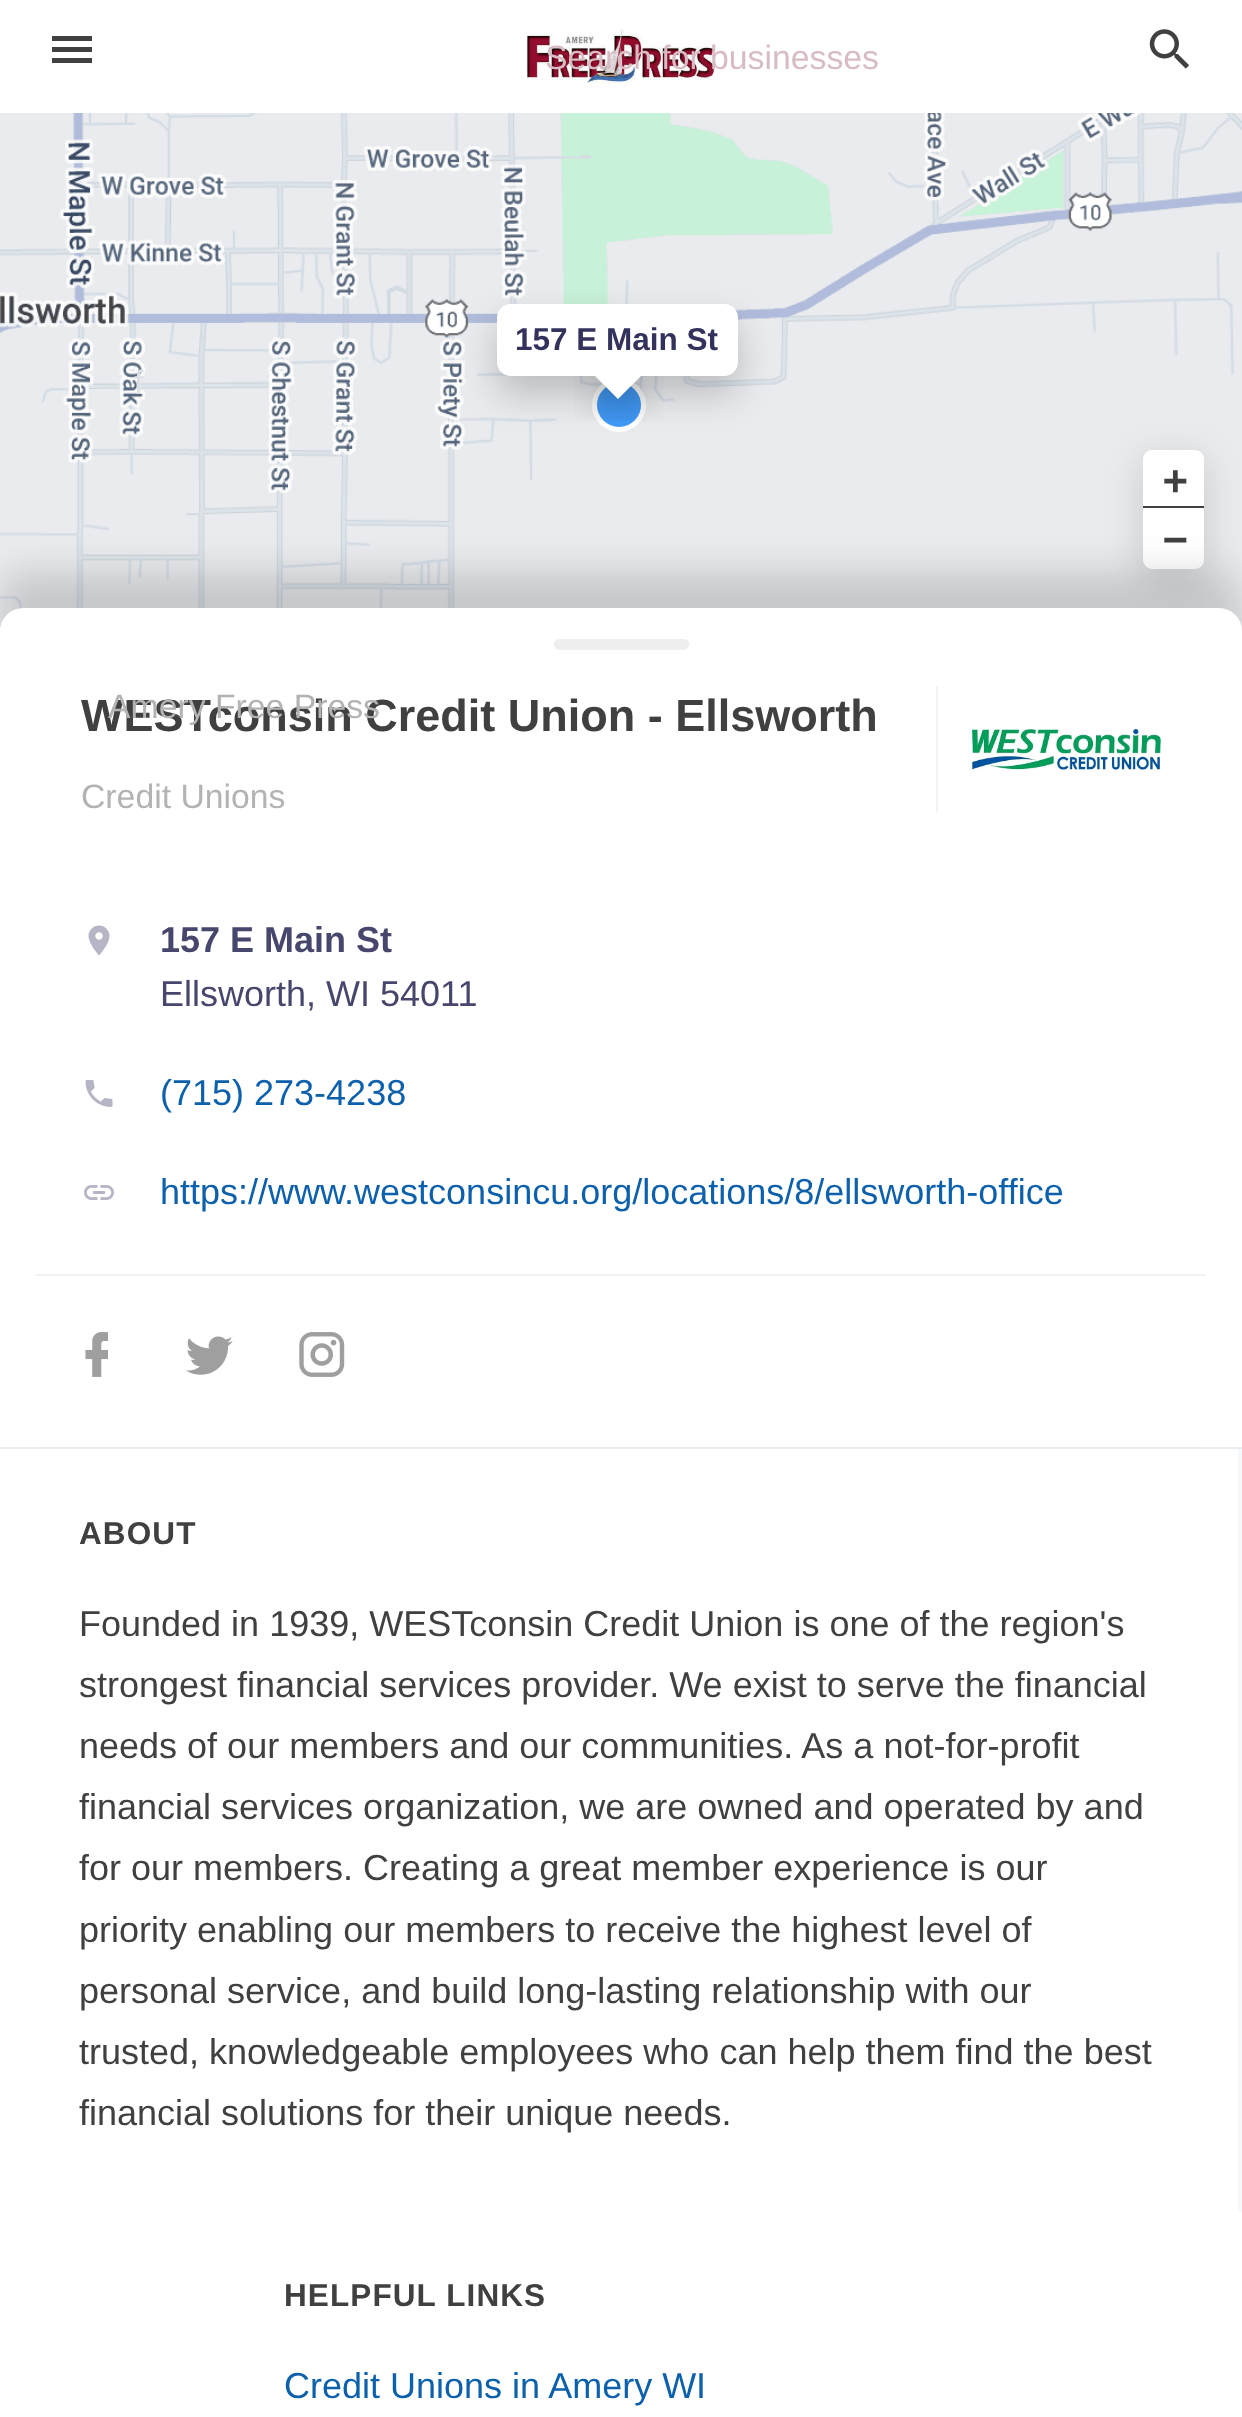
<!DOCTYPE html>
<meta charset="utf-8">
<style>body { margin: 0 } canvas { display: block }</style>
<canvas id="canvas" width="1242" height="2417"></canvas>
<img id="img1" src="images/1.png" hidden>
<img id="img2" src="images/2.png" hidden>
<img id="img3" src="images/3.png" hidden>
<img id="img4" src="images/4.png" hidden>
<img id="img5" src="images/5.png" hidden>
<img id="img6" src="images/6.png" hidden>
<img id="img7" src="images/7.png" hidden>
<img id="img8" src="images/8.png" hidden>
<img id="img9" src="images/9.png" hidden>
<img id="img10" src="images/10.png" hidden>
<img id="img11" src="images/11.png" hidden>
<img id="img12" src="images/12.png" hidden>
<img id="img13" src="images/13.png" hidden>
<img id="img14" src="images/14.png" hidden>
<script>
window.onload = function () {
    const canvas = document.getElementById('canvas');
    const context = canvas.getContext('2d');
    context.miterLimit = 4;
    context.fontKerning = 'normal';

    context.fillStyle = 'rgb(255, 255, 255)';
    context.fillRect(0, 0, 1242, 2417);
    context.fillStyle = 'rgb(64, 64, 64)';
    context.beginPath();
    context.moveTo(52, 36);
    context.lineTo(92, 36);
    context.lineTo(92, 41);
    context.lineTo(52, 41);
    context.closePath();
    context.moveTo(52, 47);
    context.lineTo(92, 47);
    context.lineTo(92, 52);
    context.lineTo(52, 52);
    context.closePath();
    context.moveTo(52, 58);
    context.lineTo(92, 58);
    context.lineTo(92, 63);
    context.lineTo(52, 63);
    context.closePath();
    context.fill();
    context.drawImage(document.getElementById('img1'), 526, 29, 189, 55);
    context.drawImage(document.getElementById('img2'), 1149, 29, 40, 40);
    context.fillStyle = 'rgb(232, 237, 242)';
    context.fillRect(0, 1447, 1242, 2);
    context.drawImage(document.getElementById('img3'), 0, 113, 288, 276);
    context.drawImage(document.getElementById('img4'), 288, 113, 576, 276);
    context.drawImage(document.getElementById('img5'), 864, 113, 378, 276);
    context.drawImage(document.getElementById('img6'), 0, 389, 288, 242);
    context.drawImage(document.getElementById('img7'), 288, 389, 576, 219);
    context.fillStyle = 'rgb(233, 235, 237)';
    context.fillRect(864, 389, 378, 242);
    context.fillStyle = 'rgb(66, 155, 248)';
    context.beginPath();
    context.arc(619, 405, 24.5, 0, 2 * Math.PI);
    context.fill();
    context.strokeStyle = 'rgb(255, 255, 255)';
    context.lineWidth = 5;
    context.stroke();
    context.fillStyle = 'rgba(0, 0, 0, 0.2)';
    context.filter = 'blur(18px)';
    context.beginPath();
    context.roundRect(497, 322, 241, 72, 14);
    context.fill();
    context.filter = 'none';
    context.fillStyle = 'rgb(255, 255, 255)';
    context.beginPath();
    context.roundRect(497, 304, 241, 72, 14);
    context.fill();
    context.save();
    context.beginPath();
    context.rect(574, 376, 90, 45);
    context.clip();
    context.fillStyle = 'rgba(0, 0, 0, 0.2)';
    context.filter = 'blur(18px)';
    context.beginPath();
    context.rect(599, 371, 38, 39);
    context.fill();
    context.filter = 'none';
    context.restore();
    context.save();
    context.beginPath();
    context.rect(574, 376, 90, 45);
    context.clip();
    context.beginPath();
    context.moveTo(618, 345);
    context.lineTo(645, 372);
    context.lineTo(618, 399);
    context.lineTo(591, 372);
    context.closePath();
    context.fill();
    context.restore();
    context.fillStyle = 'rgba(0, 0, 0, 0.15)';
    context.filter = 'blur(18.5px)';
    context.beginPath();
    context.roundRect(1143, 459, 61, 119, 9);
    context.fill();
    context.filter = 'none';
    context.fillStyle = 'rgb(255, 255, 255)';
    context.beginPath();
    context.roundRect(1143, 450, 61, 59, [9, 9, 0, 0]);
    context.fill();
    context.fillStyle = 'rgb(64, 64, 64)';
    context.fillRect(1143, 506, 61, 2);
    context.fillStyle = 'rgb(255, 255, 255)';
    context.beginPath();
    context.roundRect(1143, 509, 61, 60, [0, 0, 9, 9]);
    context.fill();
    context.fillStyle = 'rgba(0, 0, 0, 0.15)';
    context.filter = 'blur(18px)';
    context.beginPath();
    context.roundRect(0, 572, 1242, 839, 23);
    context.fill();
    context.filter = 'none';
    context.fillStyle = 'rgb(255, 255, 255)';
    context.beginPath();
    context.roundRect(0, 608, 1242, 839, [23, 23, 0, 0]);
    context.fill();
    context.fillStyle = 'rgb(238, 238, 238)';
    context.beginPath();
    context.roundRect(554, 639, 135, 11, 5.5);
    context.fill();
    context.fillStyle = 'rgb(242, 242, 242)';
    context.fillRect(936, 686, 2, 126);
    context.drawImage(document.getElementById('img8'), 972, 729, 189, 41);
    context.drawImage(document.getElementById('img9'), 88, 925, 22, 31);
    context.drawImage(document.getElementById('img10'), 85, 1080, 28, 27);
    context.drawImage(document.getElementById('img11'), 84, 1185, 30, 15);
    context.fillRect(36, 1274, 1170, 2);
    context.drawImage(document.getElementById('img12'), 85, 1332, 23, 45);
    context.drawImage(document.getElementById('img13'), 186, 1336, 47, 39);
    context.drawImage(document.getElementById('img14'), 299, 1332, 46, 45);
    context.fillStyle = 'rgb(246, 249, 252)';
    context.fillRect(1238, 1449, 4, 763);
    context.font = '33.75px Liberation Sans';
    context.fillStyle = 'rgb(216, 188, 195)';
    context.fillText('Search for businesses', 545, 69);
    context.fillStyle = 'rgb(220, 224, 229)';
    context.fillText('f', 134, 394);
    context.font = 'bold 31.5px Liberation Sans';
    context.fillStyle = 'rgb(50, 50, 93)';
    context.fillText('157 E Main St', 515, 350);
    context.font = 'bold 41px DejaVu Sans Mono';
    context.fillStyle = 'rgb(64, 64, 64)';
    context.fillText('+', 1163, 494);
    context.fillText('−', 1163, 553);
    context.font = 'bold 45px Liberation Sans';
    context.fillText('WESTconsin Credit Union - Ellsworth', 81, 731);
    context.font = '33.75px Liberation Sans';
    context.fillStyle = 'rgb(179, 179, 179)';
    context.fillText('Amery Free Press', 108, 718);
    context.fillText('Credit Unions', 81, 808);
    context.font = 'bold 36px Liberation Sans';
    context.fillStyle = 'rgb(71, 71, 109)';
    context.fillText('157 E Main St', 160, 952);
    context.font = '36px Liberation Sans';
    context.fillText('Ellsworth, WI 54011', 160, 1006);
    context.fillStyle = 'rgb(13, 96, 171)';
    context.fillText('(715) 273-4238', 160, 1105);
    context.fillText('https://www.westconsincu.org/locations/8/ellsworth-office', 160, 1204);
    context.letterSpacing = '1.1px';
    context.font = 'bold 31.5px Liberation Sans';
    context.fillStyle = 'rgb(64, 64, 64)';
    context.fillText('ABOUT', 79, 1544);
    context.letterSpacing = '0px';
    context.font = '36px Liberation Sans';
    context.fillText('Founded in 1939, WESTconsin Credit Union is one of the region\'s', 79, 1636);
    context.fillText('strongest financial services provider. We exist to serve the financial', 79, 1697);
    context.fillText('needs of our members and our communities. As a not-for-profit', 79, 1758);
    context.fillText('financial services organization, we are owned and operated by and', 79, 1819);
    context.fillText('for our members. Creating a great member experience is our', 79, 1880);
    context.fillText('priority enabling our members to receive the highest level of', 79, 1942);
    context.fillText('personal service, and build long-lasting relationship with our', 79, 2003);
    context.fillText('trusted, knowledgeable employees who can help them find the best', 79, 2064);
    context.fillText('financial solutions for their unique needs.', 79, 2125);
    context.letterSpacing = '1.1px';
    context.font = 'bold 31.5px Liberation Sans';
    context.fillText('HELPFUL LINKS', 284, 2306);
    context.letterSpacing = '0px';
    context.font = '36px Liberation Sans';
    context.fillStyle = 'rgb(13, 96, 171)';
    context.fillText('Credit Unions in Amery WI', 284, 2398);
};
</script>
